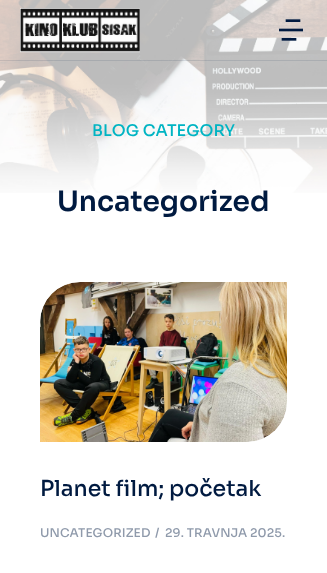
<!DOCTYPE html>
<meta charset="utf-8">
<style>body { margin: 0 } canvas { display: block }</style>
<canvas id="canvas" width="327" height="573"></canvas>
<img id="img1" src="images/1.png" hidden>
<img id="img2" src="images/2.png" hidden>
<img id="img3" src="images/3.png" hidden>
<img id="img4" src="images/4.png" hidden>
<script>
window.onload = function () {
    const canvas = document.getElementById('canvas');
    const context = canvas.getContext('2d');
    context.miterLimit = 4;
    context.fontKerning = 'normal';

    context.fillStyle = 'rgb(255, 255, 255)';
    context.fillRect(0, 0, 327, 573);
    context.drawImage(document.getElementById('img1'), 0, 0, 327, 193);
    context.fillStyle = 'rgba(0, 26, 64, 0.11)';
    context.fillRect(0, 60, 327, 1);
    context.drawImage(document.getElementById('img2'), 20, 8, 120, 45);
    context.drawImage(document.getElementById('img3'), 279, 19, 24, 22);
    context.fillStyle = 'rgb(247, 247, 247)';
    context.beginPath();
    context.roundRect(40, 282, 247, 160, [40, 0, 40, 0]);
    context.fill();
    context.drawImage(document.getElementById('img4'), 40, 282, 247, 160);
    context.letterSpacing = '0.1px';
    context.font = '500 16px Sora';
    context.fillStyle = 'rgb(0, 180, 195)';
    context.fillText('BLOG CATEGORY', 92, 136);
    context.letterSpacing = '0px';
    context.font = '600 28px Sora';
    context.fillStyle = 'rgb(0, 26, 64)';
    context.fillText('Uncategorized', 57, 211);
    context.font = '500 22px Sora';
    context.fillText('Planet film; početak', 40, 496);
    context.letterSpacing = '0.1px';
    context.font = '500 12px Sora';
    context.fillStyle = 'rgb(143, 154, 171)';
    context.fillText('UNCATEGORIZED', 40, 537);
    context.fillText('/', 155, 537);
    context.fillText('29. TRAVNJA 2025.', 165, 537);
};
</script>
